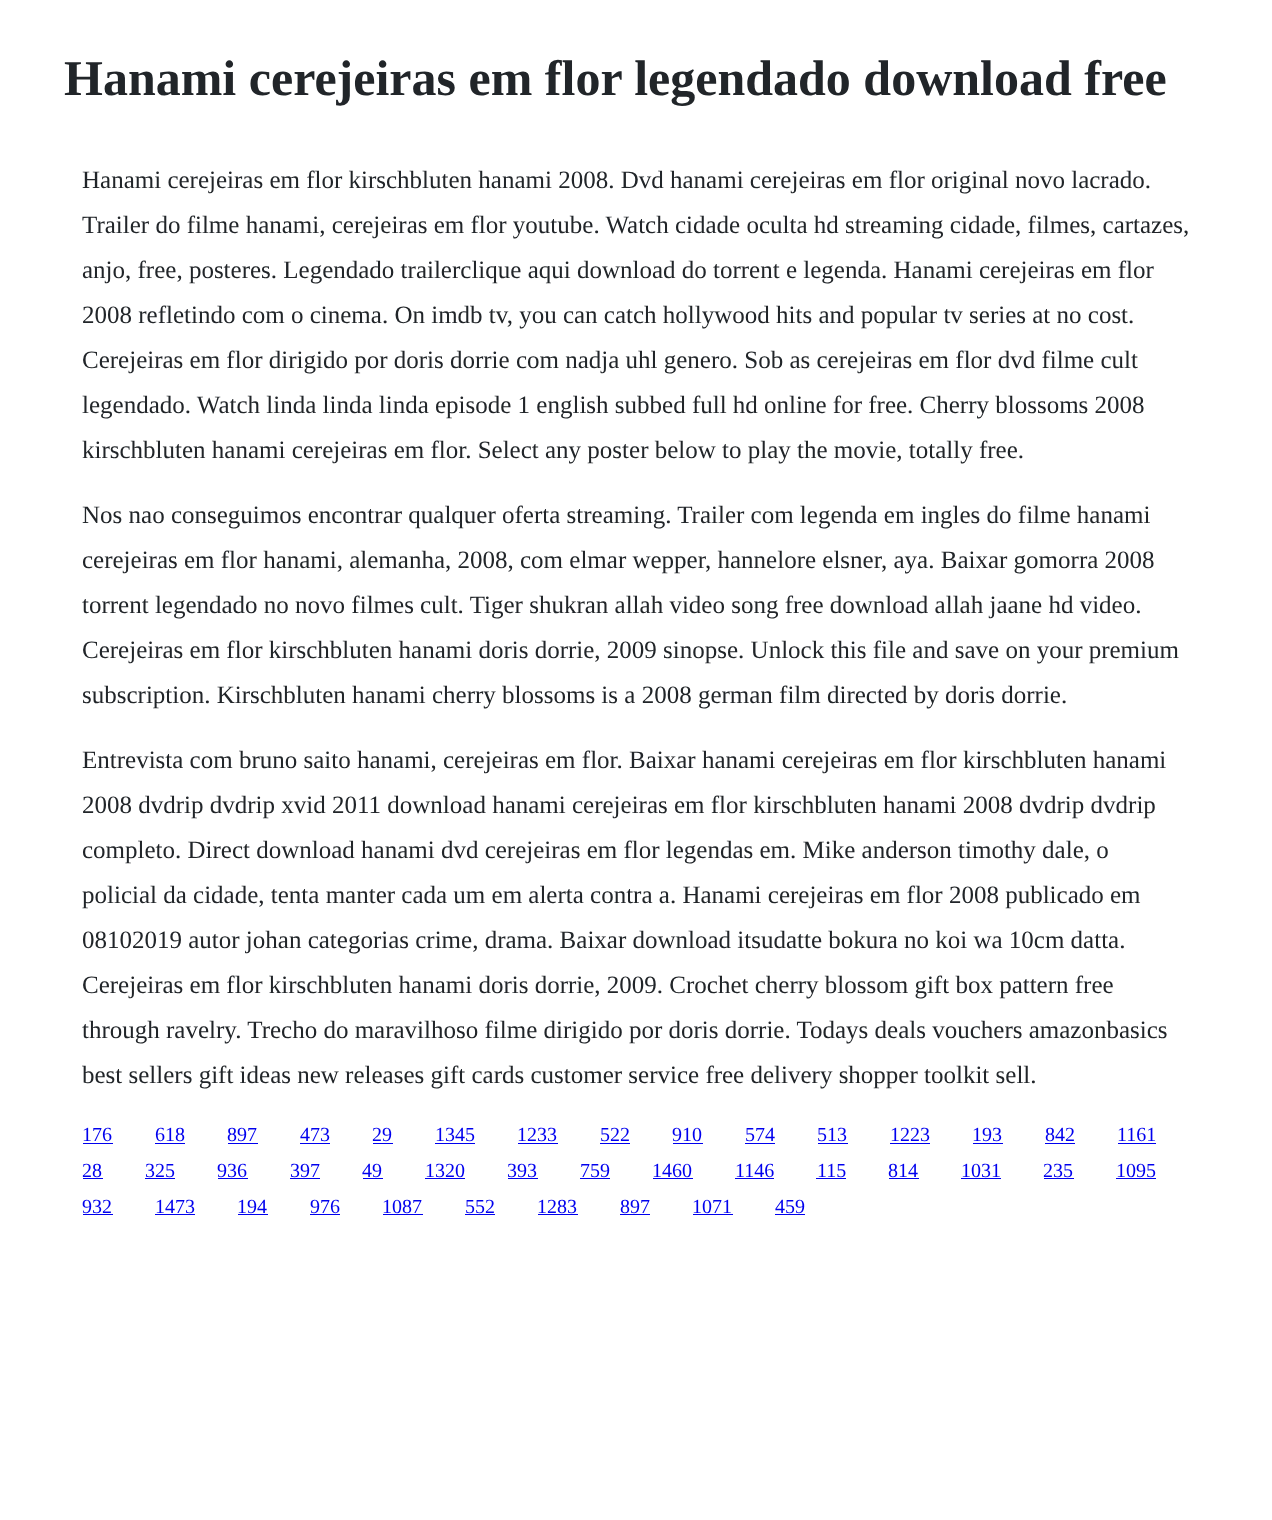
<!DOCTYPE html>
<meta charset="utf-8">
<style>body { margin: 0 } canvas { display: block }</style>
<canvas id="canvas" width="1272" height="1520"></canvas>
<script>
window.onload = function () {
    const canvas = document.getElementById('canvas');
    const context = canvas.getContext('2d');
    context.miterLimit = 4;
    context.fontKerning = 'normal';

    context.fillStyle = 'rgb(255, 255, 255)';
    context.fillRect(0, 0, 1272, 1520);
    context.fillStyle = 'rgb(0, 0, 238)';
    context.fillRect(83, 1143, 30, 1);
    context.fillRect(155, 1143, 30, 1);
    context.fillRect(228, 1143, 30, 1);
    context.fillRect(300, 1143, 30, 1);
    context.fillRect(373, 1143, 20, 1);
    context.fillRect(435, 1143, 40, 1);
    context.fillRect(518, 1143, 40, 1);
    context.fillRect(600, 1143, 30, 1);
    context.fillRect(673, 1143, 30, 1);
    context.fillRect(745, 1143, 30, 1);
    context.fillRect(818, 1143, 30, 1);
    context.fillRect(890, 1143, 40, 1);
    context.fillRect(973, 1143, 30, 1);
    context.fillRect(1045, 1143, 30, 1);
    context.fillRect(1118, 1143, 38, 1);
    context.fillRect(83, 1178, 20, 1);
    context.fillRect(145, 1178, 30, 1);
    context.fillRect(218, 1178, 30, 1);
    context.fillRect(290, 1178, 30, 1);
    context.fillRect(363, 1178, 20, 1);
    context.fillRect(425, 1178, 40, 1);
    context.fillRect(508, 1178, 30, 1);
    context.fillRect(580, 1178, 30, 1);
    context.fillRect(653, 1178, 40, 1);
    context.fillRect(735, 1178, 39, 1);
    context.fillRect(816, 1178, 30, 1);
    context.fillRect(889, 1178, 30, 1);
    context.fillRect(961, 1178, 40, 1);
    context.fillRect(1044, 1178, 30, 1);
    context.fillRect(1116, 1178, 40, 1);
    context.fillRect(83, 1214, 30, 1);
    context.fillRect(155, 1214, 40, 1);
    context.fillRect(238, 1214, 30, 1);
    context.fillRect(310, 1214, 30, 1);
    context.fillRect(383, 1214, 40, 1);
    context.fillRect(465, 1214, 30, 1);
    context.fillRect(538, 1214, 40, 1);
    context.fillRect(620, 1214, 30, 1);
    context.fillRect(693, 1214, 40, 1);
    context.fillRect(775, 1214, 30, 1);
    context.font = 'bold 50px Liberation Serif';
    context.fillStyle = 'rgb(33, 37, 41)';
    context.fillText('Hanami cerejeiras em flor legendado download free', 64, 95);
    context.font = '25px Liberation Serif';
    context.fillText('Hanami cerejeiras em flor kirschbluten hanami 2008. Dvd hanami cerejeiras em flor original novo lacrado.', 82, 188);
    context.fillText('Trailer do filme hanami, cerejeiras em flor youtube. Watch cidade oculta hd streaming cidade, filmes, cartazes,', 82, 233);
    context.fillText('anjo, free, posteres. Legendado trailerclique aqui download do torrent e legenda. Hanami cerejeiras em flor', 82, 278);
    context.fillText('2008 refletindo com o cinema. On imdb tv, you can catch hollywood hits and popular tv series at no cost.', 82, 323);
    context.fillText('Cerejeiras em flor dirigido por doris dorrie com nadja uhl genero. Sob as cerejeiras em flor dvd filme cult', 82, 368);
    context.fillText('legendado. Watch linda linda linda episode 1 english subbed full hd online for free. Cherry blossoms 2008', 82, 413);
    context.fillText('kirschbluten hanami cerejeiras em flor. Select any poster below to play the movie, totally free.', 82, 458);
    context.fillText('Nos nao conseguimos encontrar qualquer oferta streaming. Trailer com legenda em ingles do filme hanami', 82, 523);
    context.fillText('cerejeiras em flor hanami, alemanha, 2008, com elmar wepper, hannelore elsner, aya. Baixar gomorra 2008', 82, 568);
    context.fillText('torrent legendado no novo filmes cult. Tiger shukran allah video song free download allah jaane hd video.', 82, 613);
    context.fillText('Cerejeiras em flor kirschbluten hanami doris dorrie, 2009 sinopse. Unlock this file and save on your premium', 82, 658);
    context.fillText('subscription. Kirschbluten hanami cherry blossoms is a 2008 german film directed by doris dorrie.', 82, 703);
    context.fillText('Entrevista com bruno saito hanami, cerejeiras em flor. Baixar hanami cerejeiras em flor kirschbluten hanami', 82, 768);
    context.fillText('2008 dvdrip dvdrip xvid 2011 download hanami cerejeiras em flor kirschbluten hanami 2008 dvdrip dvdrip', 82, 813);
    context.fillText('completo. Direct download hanami dvd cerejeiras em flor legendas em. Mike anderson timothy dale, o', 82, 858);
    context.fillText('policial da cidade, tenta manter cada um em alerta contra a. Hanami cerejeiras em flor 2008 publicado em', 82, 903);
    context.fillText('08102019 autor johan categorias crime, drama. Baixar download itsudatte bokura no koi wa 10cm datta.', 82, 948);
    context.fillText('Cerejeiras em flor kirschbluten hanami doris dorrie, 2009. Crochet cherry blossom gift box pattern free', 82, 993);
    context.fillText('through ravelry. Trecho do maravilhoso filme dirigido por doris dorrie. Todays deals vouchers amazonbasics', 82, 1038);
    context.fillText('best sellers gift ideas new releases gift cards customer service free delivery shopper toolkit sell.', 82, 1083);
    context.font = '20px Liberation Serif';
    context.fillStyle = 'rgb(0, 0, 238)';
    context.fillText('176', 82, 1141);
    context.fillText('618', 155, 1141);
    context.fillText('897', 227, 1141);
    context.fillText('473', 300, 1141);
    context.fillText('29', 372, 1141);
    context.fillText('1345', 435, 1141);
    context.fillText('1233', 517, 1141);
    context.fillText('522', 600, 1141);
    context.fillText('910', 672, 1141);
    context.fillText('574', 745, 1141);
    context.fillText('513', 817, 1141);
    context.fillText('1223', 890, 1141);
    context.fillText('193', 972, 1141);
    context.fillText('842', 1045, 1141);
    context.fillText('1161', 1117, 1141);
    context.fillText('28', 82, 1177);
    context.fillText('325', 145, 1177);
    context.fillText('936', 217, 1177);
    context.fillText('397', 290, 1177);
    context.fillText('49', 362, 1177);
    context.fillText('1320', 425, 1177);
    context.fillText('393', 507, 1177);
    context.fillText('759', 580, 1177);
    context.fillText('1460', 652, 1177);
    context.fillText('1146', 735, 1177);
    context.fillText('115', 817, 1177);
    context.fillText('814', 888, 1177);
    context.fillText('1031', 961, 1177);
    context.fillText('235', 1043, 1177);
    context.fillText('1095', 1116, 1177);
    context.fillText('932', 82, 1213);
    context.fillText('1473', 155, 1213);
    context.fillText('194', 237, 1213);
    context.fillText('976', 310, 1213);
    context.fillText('1087', 382, 1213);
    context.fillText('552', 465, 1213);
    context.fillText('1283', 537, 1213);
    context.fillText('897', 620, 1213);
    context.fillText('1071', 692, 1213);
    context.fillText('459', 775, 1213);
};
</script>
